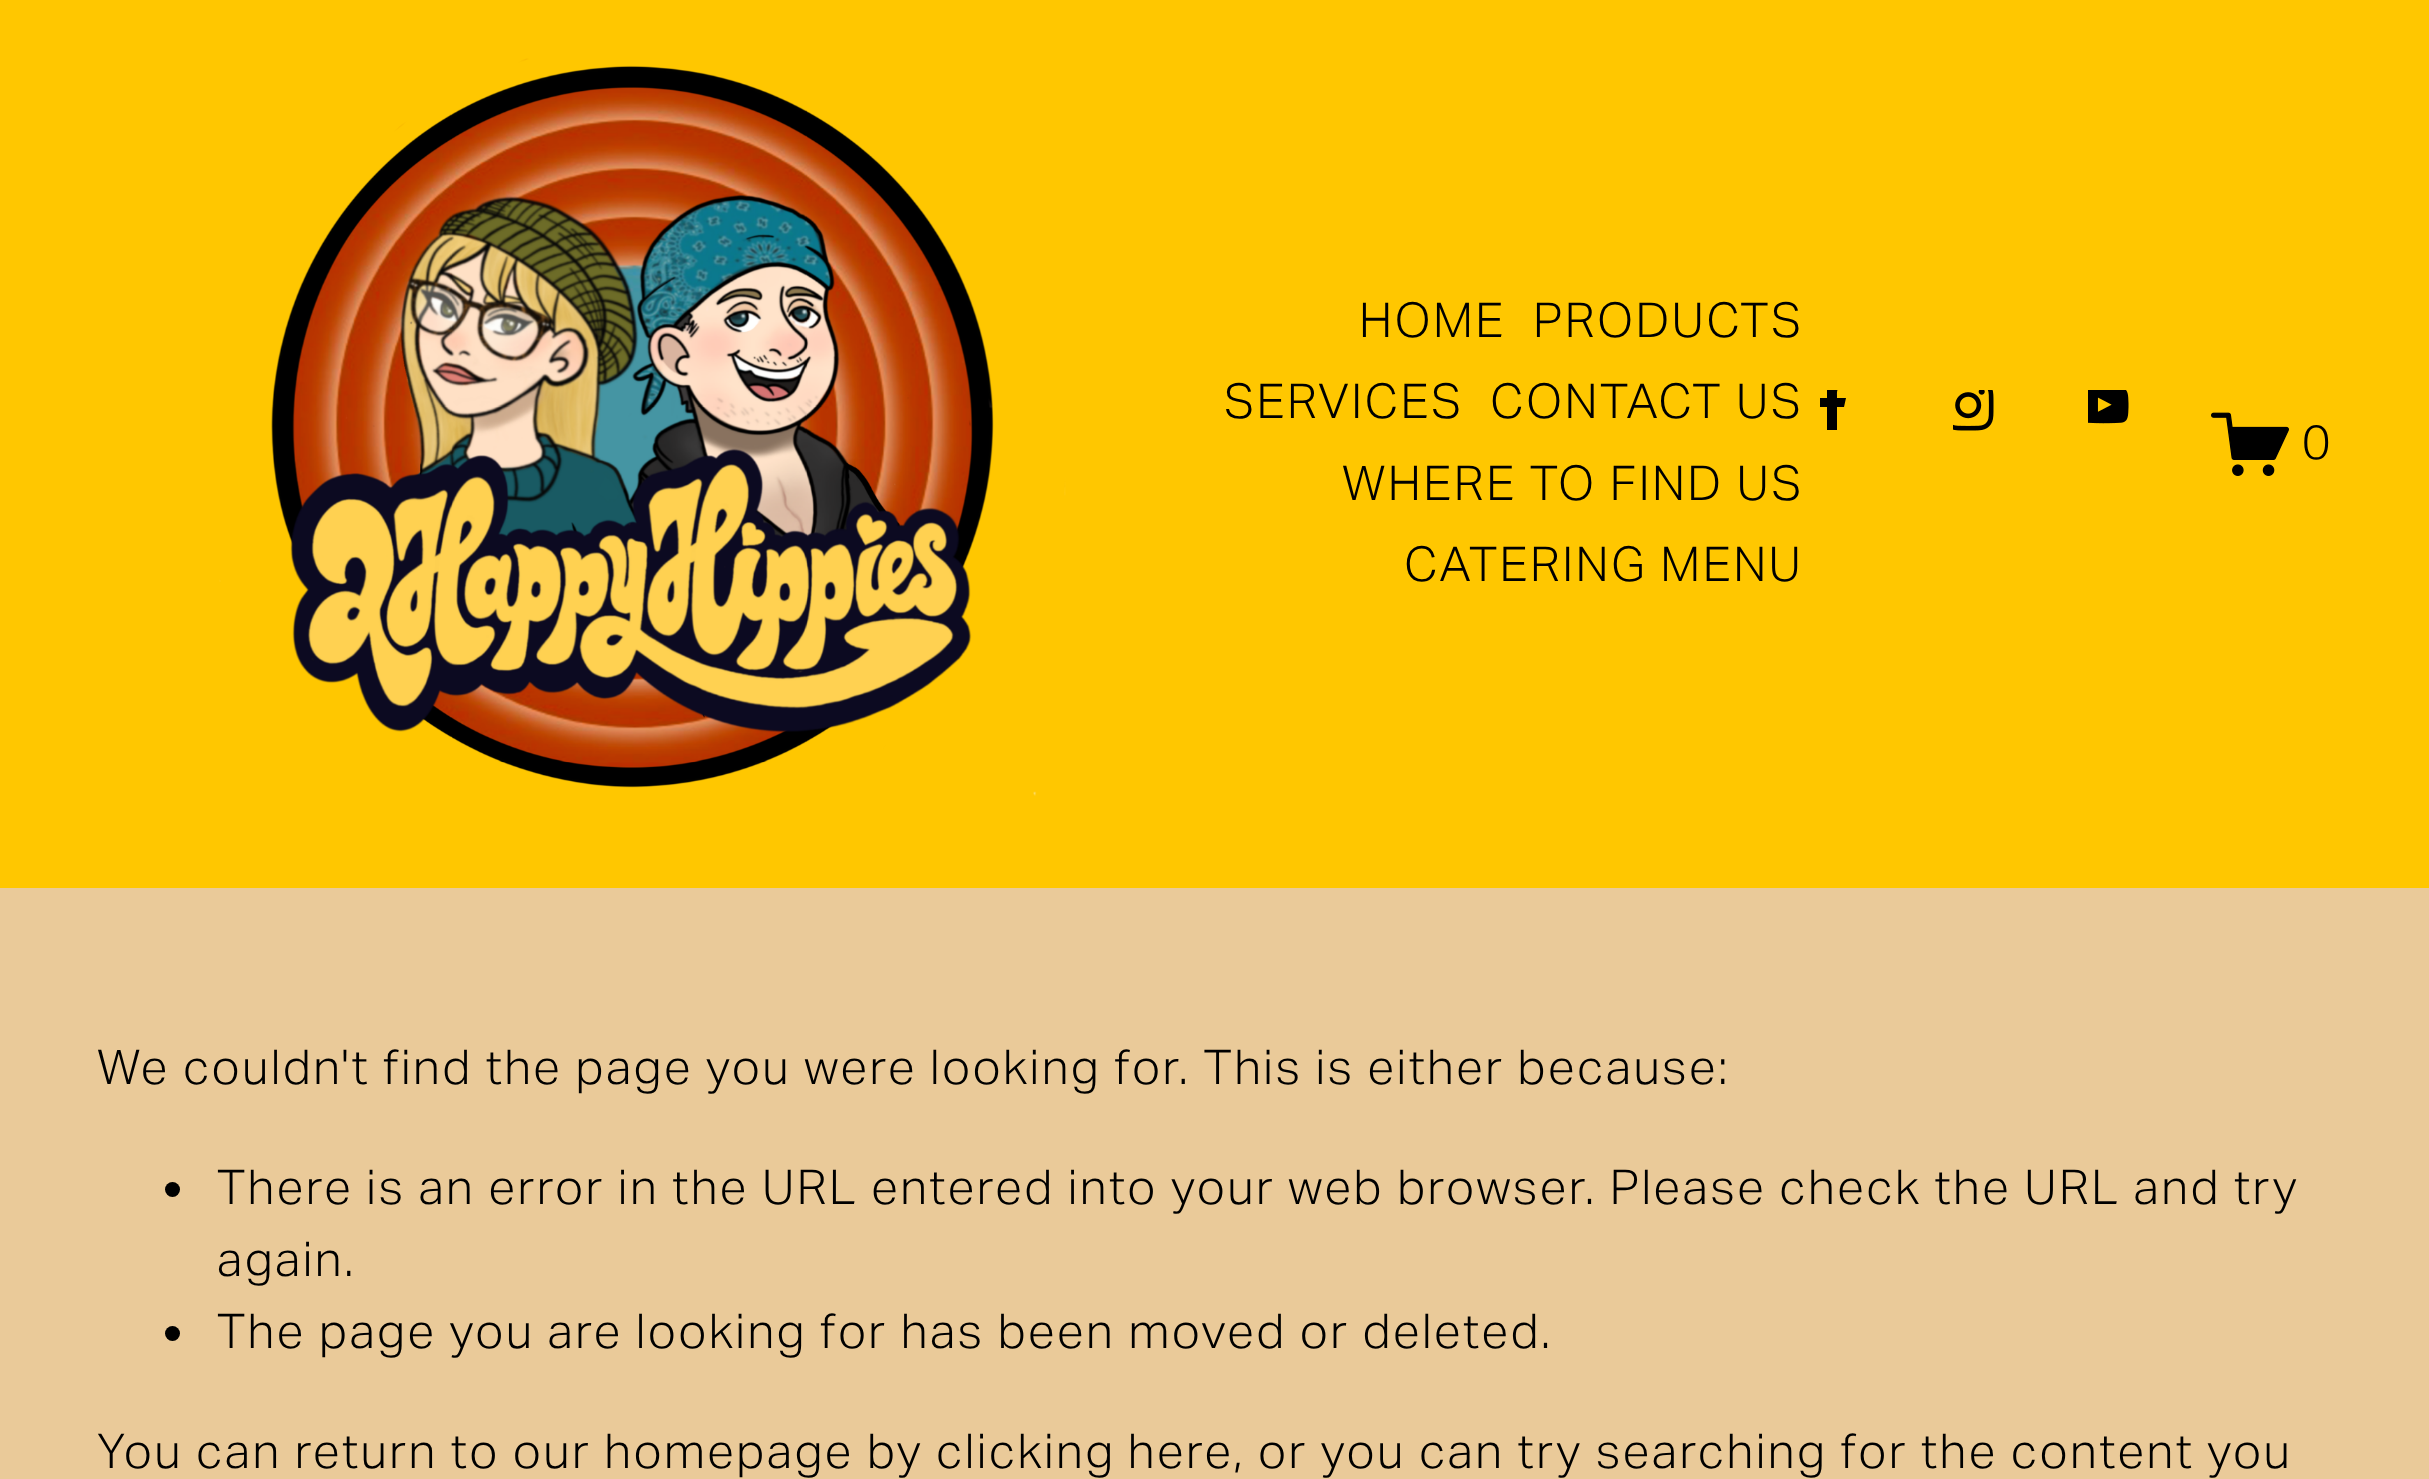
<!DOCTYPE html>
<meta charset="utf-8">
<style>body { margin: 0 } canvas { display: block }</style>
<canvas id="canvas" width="2429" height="1479"></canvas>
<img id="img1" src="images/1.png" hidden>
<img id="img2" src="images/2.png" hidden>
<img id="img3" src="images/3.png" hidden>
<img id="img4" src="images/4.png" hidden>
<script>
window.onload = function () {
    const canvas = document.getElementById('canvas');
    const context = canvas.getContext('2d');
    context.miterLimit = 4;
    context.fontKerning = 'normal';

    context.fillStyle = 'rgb(234, 202, 153)';
    context.fillRect(0, 0, 2429, 1479);
    context.fillStyle = 'rgb(255, 199, 0)';
    context.fillRect(0, 0, 2429, 888);
    context.drawImage(document.getElementById('img1'), 219, 58, 847, 738);
    context.save();
    context.beginPath();
    context.rect(1818, 390, 108, 108);
    context.clip();
    context.fillStyle = 'rgb(0, 0, 0)';
    context.beginPath();
    context.moveTo(1837, 430);
    context.lineTo(1837, 407);
    context.lineTo(1844, 407);
    context.lineTo(1846, 398);
    context.lineTo(1837, 398);
    context.bezierCurveTo(1837, 389, 1836, 388, 1846, 388);
    context.lineTo(1846, 380);
    context.bezierCurveTo(1838, 379, 1829, 380, 1827, 389);
    context.lineTo(1827, 398);
    context.lineTo(1820, 398);
    context.lineTo(1820, 407);
    context.lineTo(1827, 407);
    context.lineTo(1827, 430);
    context.closePath();
    context.fill();
    context.restore();
    context.drawImage(document.getElementById('img2'), 1953, 390, 41, 41);
    context.drawImage(document.getElementById('img3'), 2088, 390, 41, 34);
    context.drawImage(document.getElementById('img4'), 2211, 412, 78, 64);
    context.fillStyle = 'rgb(0, 0, 0)';
    context.beginPath();
    context.arc(172.5, 1189.5, 7.5, 0, 2 * Math.PI);
    context.fill();
    context.beginPath();
    context.arc(172.5, 1333.5, 7.5, 0, 2 * Math.PI);
    context.fill();
    context.letterSpacing = '2.4px';
    context.font = '300 48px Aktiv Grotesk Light';
    context.fillText('HOME', 1359, 337);
    context.fillText('PRODUCTS', 1533, 337);
    context.fillText('SERVICES', 1224, 418);
    context.fillText('CONTACT US', 1490, 418);
    context.fillText('WHERE TO FIND US', 1342, 500);
    context.fillText('CATERING MENU', 1404, 581);
    context.fillText('0', 2302, 459);
    context.fillText('We couldn\'t find the page you were looking for. This is either because:', 97, 1084);
    context.fillText('There is an error in the URL entered into your web browser. Please check the URL and try', 217, 1204);
    context.fillText('again.', 217, 1276);
    context.fillText('The page you are looking for has been moved or deleted.', 217, 1348);
    context.fillText('You can return to our homepage by', 97, 1468);
    context.wordSpacing = '-1px';
    context.fillText('clicking here', 936, 1468);
    context.wordSpacing = '0px';
    context.fillText(', or you can try searching for the content you', 1233, 1468);
};
</script>
